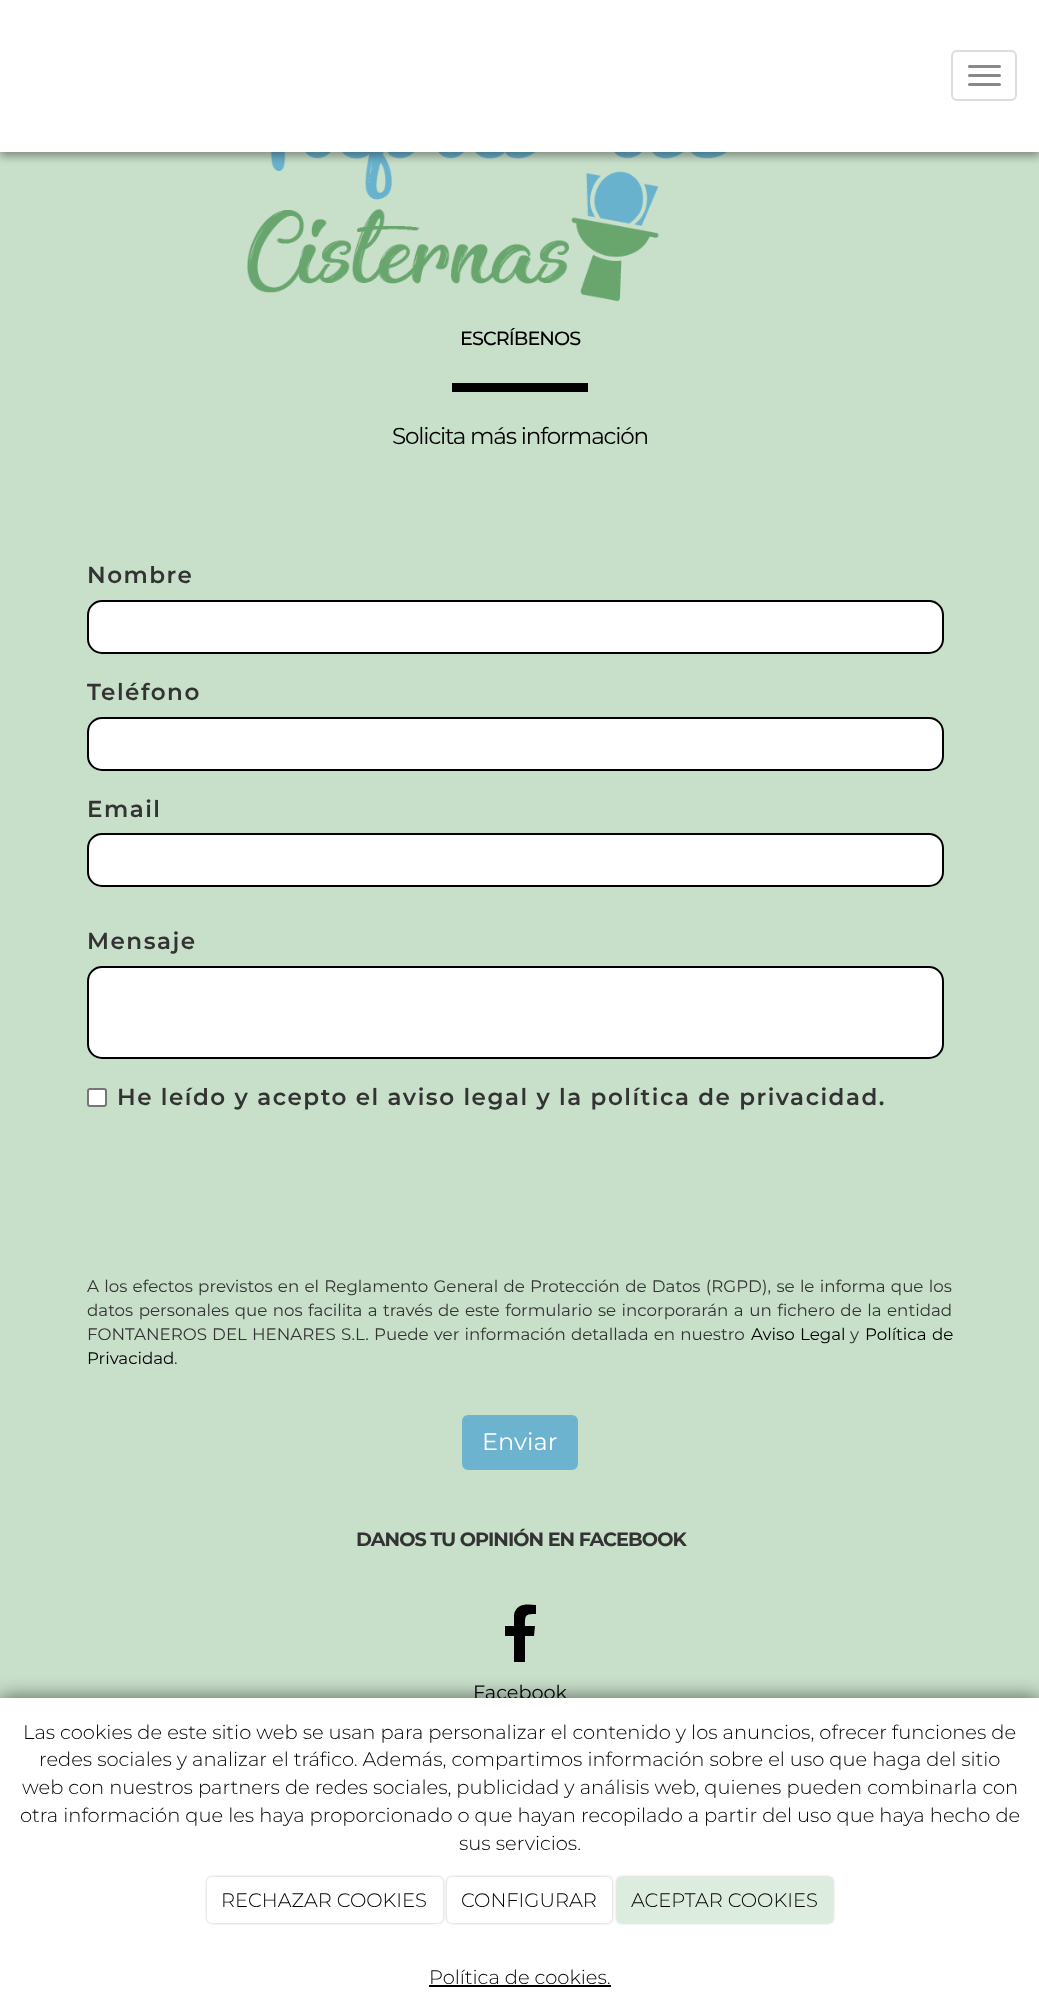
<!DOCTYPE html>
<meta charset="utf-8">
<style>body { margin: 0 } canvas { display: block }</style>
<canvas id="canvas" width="1039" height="2010"></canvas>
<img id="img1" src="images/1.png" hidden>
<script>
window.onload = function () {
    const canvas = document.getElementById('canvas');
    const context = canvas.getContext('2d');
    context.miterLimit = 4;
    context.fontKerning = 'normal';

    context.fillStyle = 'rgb(200, 223, 202)';
    context.fillRect(0, 0, 1039, 2010);
    context.drawImage(document.getElementById('img1'), 247, 152, 481, 150);
    context.fillStyle = 'rgba(0, 0, 0, 0.23)';
    context.filter = 'blur(4.5px)';
    context.beginPath();
    context.rect(0, 5, 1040, 151);
    context.fill();
    context.filter = 'none';
    context.fillStyle = 'rgba(0, 0, 0, 0.16)';
    context.filter = 'blur(4.5px)';
    context.beginPath();
    context.rect(0, 5, 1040, 151);
    context.fill();
    context.filter = 'none';
    context.fillStyle = 'rgb(255, 255, 255)';
    context.fillRect(0, 0, 1039, 152);
    context.beginPath();
    context.roundRect(952, 51, 64, 49, 5);
    context.strokeStyle = 'rgb(221, 221, 221)';
    context.lineWidth = 2;
    context.stroke();
    context.fillStyle = 'rgb(136, 136, 136)';
    context.beginPath();
    context.roundRect(968, 65, 33, 3, 1.5);
    context.fill();
    context.beginPath();
    context.roundRect(968, 74, 33, 3, 1.5);
    context.fill();
    context.beginPath();
    context.roundRect(968, 83, 33, 3, 1.5);
    context.fill();
    context.fillStyle = 'rgb(0, 0, 0)';
    context.fillRect(452, 383, 136, 9);
    context.fillStyle = 'rgb(255, 255, 255)';
    context.beginPath();
    context.roundRect(88, 601, 855, 52, 14);
    context.fill();
    context.strokeStyle = 'rgb(0, 0, 0)';
    context.stroke();
    context.beginPath();
    context.roundRect(88, 718, 855, 52, 14);
    context.fill();
    context.stroke();
    context.beginPath();
    context.roundRect(88, 834, 855, 52, 14);
    context.fill();
    context.stroke();
    context.beginPath();
    context.roundRect(88, 967, 855, 91, 14);
    context.fill();
    context.stroke();
    context.beginPath();
    context.roundRect(88, 1089, 18, 17, 2);
    context.fill();
    context.strokeStyle = 'rgb(118, 118, 118)';
    context.stroke();
    context.fillStyle = 'rgb(107, 179, 206)';
    context.beginPath();
    context.roundRect(463, 1416, 114, 53, 5);
    context.fill();
    context.strokeStyle = 'rgb(109, 180, 206)';
    context.stroke();
    context.fillStyle = 'rgb(0, 0, 0)';
    context.beginPath();
    context.moveTo(534, 1636);
    context.lineTo(525, 1636);
    context.lineTo(525, 1662);
    context.lineTo(514, 1662);
    context.lineTo(514, 1636);
    context.lineTo(505, 1636);
    context.lineTo(505, 1626);
    context.lineTo(514, 1626);
    context.lineTo(514, 1615);
    context.bezierCurveTo(516, 1603, 527, 1604, 536, 1605);
    context.lineTo(536, 1614);
    context.bezierCurveTo(525, 1614, 525, 1615, 525, 1626);
    context.lineTo(535, 1626);
    context.closePath();
    context.fill();
    context.fillStyle = 'rgba(0, 0, 0, 0.6)';
    context.filter = 'blur(10px)';
    context.beginPath();
    context.rect(0, 1698, 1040, 312);
    context.fill();
    context.filter = 'none';
    context.letterSpacing = '-0.95px';
    context.font = '500 19.25px Montserrat';
    context.fillStyle = 'rgb(0, 0, 0)';
    context.fillText('ESCRÍBENOS', 460, 345);
    context.letterSpacing = '-1.15px';
    context.font = '23.05px Montserrat';
    context.fillText('Solicita más información', 392, 444);
    context.letterSpacing = '1.5px';
    context.font = '600 23.05px Montserrat';
    context.fillStyle = 'rgb(51, 51, 51)';
    context.fillText('Nombre', 87, 583);
    context.fillText('Teléfono', 87, 700);
    context.fillText('Email', 87, 817);
    context.fillText('Mensaje', 87, 949);
    context.fillText('He leído y acepto el aviso legal y la política de privacidad.', 117, 1105);
    context.letterSpacing = '0px';
    context.wordSpacing = '0.9px';
    context.font = '16.7px Montserrat';
    context.fillText('A los efectos previstos en el Reglamento General de Protección de Datos (RGPD), se le informa que los', 87, 1292);
    context.wordSpacing = '1.1px';
    context.fillText('datos personales que nos facilita a través de este formulario se incorporarán a un fichero de la entidad', 87, 1316);
    context.wordSpacing = '0.75px';
    context.fillText('FONTANEROS DEL HENARES S.L. Puede ver información detallada en nuestro', 87, 1340);
    context.wordSpacing = '1px';
    context.fillStyle = 'rgb(0, 0, 0)';
    context.fillText('Aviso Legal', 751, 1340);
    context.wordSpacing = '0px';
    context.fillStyle = 'rgb(51, 51, 51)';
    context.fillText('y', 850, 1340);
    context.wordSpacing = '1px';
    context.fillStyle = 'rgb(0, 0, 0)';
    context.fillText('Política de', 865, 1340);
    context.wordSpacing = '0px';
    context.fillText('Privacidad', 87, 1364);
    context.fillStyle = 'rgb(51, 51, 51)';
    context.fillText('.', 174, 1364);
    context.font = '24px Montserrat';
    context.fillStyle = 'rgb(255, 255, 255)';
    context.fillText('Enviar', 482, 1450);
    context.letterSpacing = '-0.95px';
    context.font = 'bold 19.25px Montserrat';
    context.fillStyle = 'rgb(51, 51, 51)';
    context.fillText('DANOS TU OPINIÓN EN FACEBOOK', 356, 1546);
    context.letterSpacing = '0px';
    context.font = '19.25px Montserrat';
    context.fillStyle = 'rgb(0, 0, 0)';
    context.fillText('Facebook', 473, 1699);
    context.fillStyle = 'rgb(255, 255, 255)';
    context.fillRect(0, 1698, 1039, 312);
    context.font = '300 19.5px Montserrat';
    context.fillStyle = 'rgb(0, 0, 0)';
    context.fillText('Las cookies de este sitio web se usan para personalizar el contenido y los anuncios, ofrecer funciones de', 23, 1739);
    context.fillText('redes sociales y analizar el tráfico. Además, compartimos información sobre el uso que haga del sitio', 39, 1766);
    context.fillText('web con nuestros partners de redes sociales, publicidad y análisis web, quienes pueden combinarla con', 22, 1794);
    context.fillText('otra información que les haya proporcionado o que hayan recopilado a partir del uso que haya hecho de', 20, 1822);
    context.fillText('sus servicios.', 459, 1850);
    context.fillStyle = 'rgba(0, 0, 0, 0.25)';
    context.filter = 'blur(1.5px)';
    context.beginPath();
    context.roundRect(207, 1877, 236, 46, 5);
    context.fill();
    context.filter = 'none';
    context.fillStyle = 'rgb(255, 255, 255)';
    context.beginPath();
    context.roundRect(207, 1877, 236, 46, 5);
    context.fill();
    context.fillStyle = 'rgb(0, 0, 0)';
    context.fillText('RECHAZAR COOKIES', 221, 1907);
    context.fillStyle = 'rgba(0, 0, 0, 0.25)';
    context.filter = 'blur(1.5px)';
    context.beginPath();
    context.roundRect(447, 1877, 165, 46, 5);
    context.fill();
    context.filter = 'none';
    context.fillStyle = 'rgb(255, 255, 255)';
    context.beginPath();
    context.roundRect(447, 1877, 165, 46, 5);
    context.fill();
    context.fillStyle = 'rgb(0, 0, 0)';
    context.fillText('CONFIGURAR', 461, 1907);
    context.fillStyle = 'rgba(0, 0, 0, 0.25)';
    context.filter = 'blur(1.5px)';
    context.beginPath();
    context.roundRect(617, 1877, 216, 46, 5);
    context.fill();
    context.filter = 'none';
    context.fillStyle = 'rgb(220, 236, 223)';
    context.beginPath();
    context.roundRect(617, 1877, 216, 46, 5);
    context.fill();
    context.fillStyle = 'rgb(0, 0, 0)';
    context.fillText('ACEPTAR COOKIES', 631, 1907);
    context.fillText('Política de cookies.', 429, 1984);
    context.fillRect(429, 1985, 182, 2);
};
</script>
